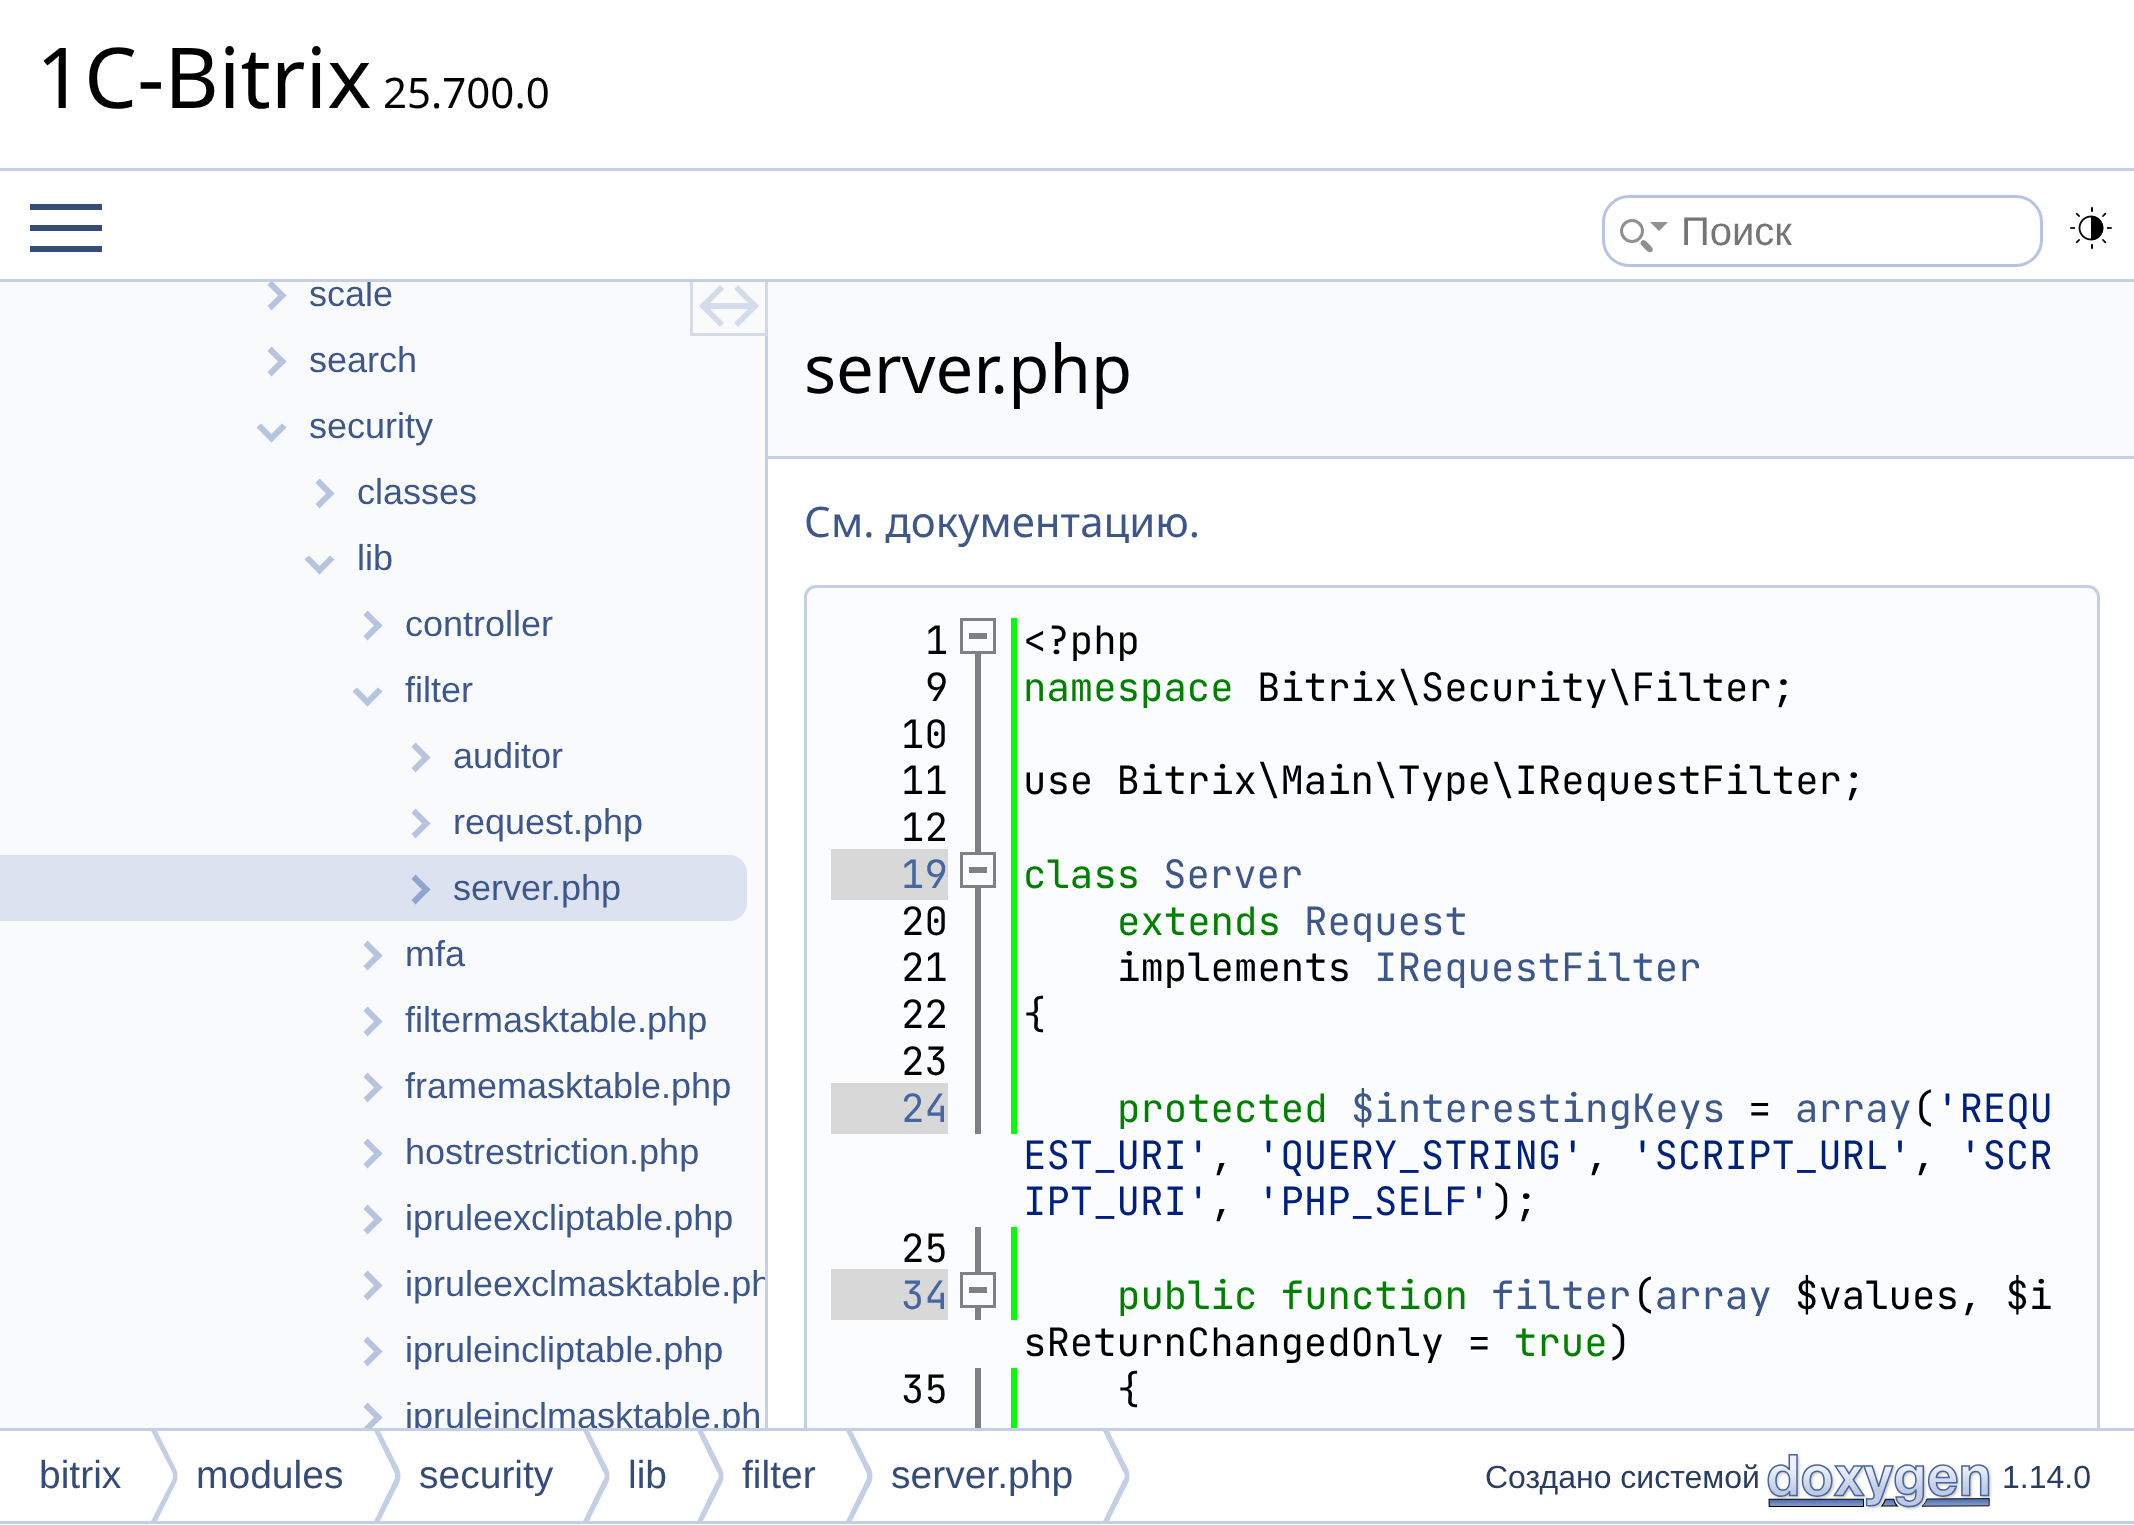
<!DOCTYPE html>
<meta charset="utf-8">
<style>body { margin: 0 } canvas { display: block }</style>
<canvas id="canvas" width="2134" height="1525"></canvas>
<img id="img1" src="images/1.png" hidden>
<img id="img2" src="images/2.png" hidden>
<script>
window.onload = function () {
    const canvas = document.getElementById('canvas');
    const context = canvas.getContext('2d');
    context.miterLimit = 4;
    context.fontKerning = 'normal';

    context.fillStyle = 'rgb(255, 255, 255)';
    context.fillRect(0, 0, 2134, 1525);
    context.fillStyle = 'rgb(196, 207, 229)';
    context.fillRect(0, 168, 2134, 3);
    context.fillStyle = 'rgb(54, 77, 124)';
    context.fillRect(30, 225, 72, 6);
    context.fillRect(30, 204, 72, 6);
    context.fillRect(30, 246, 72, 6);
    context.beginPath();
    context.roundRect(1603.5, 196.5, 438, 69, 25.5);
    context.strokeStyle = 'rgb(182, 196, 223)';
    context.lineWidth = 3;
    context.stroke();
    context.beginPath();
    context.arc(1632, 231, 10.5, 0, 2 * Math.PI);
    context.strokeStyle = 'rgb(144, 144, 144)';
    context.stroke();
    context.fillStyle = 'rgb(144, 144, 144)';
    context.beginPath();
    context.moveTo(1650, 222);
    context.lineTo(1668, 222);
    context.lineTo(1659, 231);
    context.closePath();
    context.moveTo(1641.5, 241);
    context.bezierCurveTo(1644, 238, 1647, 242.5, 1649, 244);
    context.bezierCurveTo(1650.5, 246, 1654.5, 248.5, 1652, 251.5);
    context.bezierCurveTo(1649, 254, 1646, 250, 1644.5, 248.5);
    context.bezierCurveTo(1643, 246.5, 1638.5, 243.5, 1641.5, 241);
    context.closePath();
    context.fill();
    context.drawImage(document.getElementById('img1'), 2070, 207, 42, 42);
    context.fillStyle = 'rgb(196, 207, 229)';
    context.fillRect(0, 279, 2134, 3);
    context.fillStyle = 'rgb(249, 250, 252)';
    context.fillRect(0, 282, 765, 1146);
    context.fillStyle = 'rgb(196, 207, 229)';
    context.fillRect(765, 336, 3, 1092);
    context.fillStyle = 'rgb(233, 237, 245)';
    context.fillRect(765, 282, 3, 54);
    context.save();
    context.beginPath();
    context.rect(0, 282, 786, 1146);
    context.clip();
    context.strokeStyle = 'rgba(196, 207, 229, 0.7)';
    context.strokeRect(691.5, 280.5, 75, 54);
    context.restore();
    context.fillStyle = 'rgb(212, 220, 236)';
    context.beginPath();
    context.moveTo(699, 306);
    context.lineTo(720, 285);
    context.lineTo(724, 289);
    context.lineTo(703, 310);
    context.closePath();
    context.fill();
    context.beginPath();
    context.moveTo(699, 306);
    context.lineTo(703, 302);
    context.lineTo(724, 323);
    context.lineTo(720, 327);
    context.closePath();
    context.moveTo(734, 289);
    context.lineTo(738, 285);
    context.lineTo(759, 306);
    context.lineTo(755, 310);
    context.closePath();
    context.fill();
    context.beginPath();
    context.moveTo(734, 323);
    context.lineTo(755, 302);
    context.lineTo(759, 306);
    context.lineTo(738, 327);
    context.closePath();
    context.fill();
    context.fillRect(705, 303, 48, 6);
    context.save();
    context.beginPath();
    context.rect(0, 282, 765, 1146);
    context.clip();
    context.fillStyle = 'rgb(182, 196, 223)';
    context.beginPath();
    context.moveTo(267.5, 285);
    context.lineTo(271.5, 280.5);
    context.lineTo(286.5, 295.5);
    context.lineTo(282, 299.5);
    context.closePath();
    context.fill();
    context.restore();
    context.fillStyle = 'rgb(182, 196, 223)';
    context.beginPath();
    context.moveTo(267.5, 306);
    context.lineTo(282, 291.5);
    context.lineTo(286.5, 295.5);
    context.lineTo(271.5, 310.5);
    context.closePath();
    context.fill();
    context.beginPath();
    context.moveTo(267.5, 351);
    context.lineTo(271.5, 346.5);
    context.lineTo(286.5, 361.5);
    context.lineTo(282, 365.5);
    context.closePath();
    context.fill();
    context.beginPath();
    context.moveTo(267.5, 372);
    context.lineTo(282, 357.5);
    context.lineTo(286.5, 361.5);
    context.lineTo(271.5, 376.5);
    context.closePath();
    context.fill();
    context.beginPath();
    context.moveTo(282, 423.5);
    context.lineTo(286.5, 427.5);
    context.lineTo(271.5, 442.5);
    context.lineTo(267.5, 438);
    context.closePath();
    context.fill();
    context.beginPath();
    context.moveTo(261, 423.5);
    context.lineTo(275.5, 438);
    context.lineTo(271.5, 442.5);
    context.lineTo(256.5, 427.5);
    context.closePath();
    context.fill();
    context.beginPath();
    context.moveTo(315.5, 483);
    context.lineTo(319.5, 478.5);
    context.lineTo(334.5, 493.5);
    context.lineTo(330, 497.5);
    context.closePath();
    context.fill();
    context.beginPath();
    context.moveTo(315.5, 504);
    context.lineTo(330, 489.5);
    context.lineTo(334.5, 493.5);
    context.lineTo(319.5, 508.5);
    context.closePath();
    context.fill();
    context.beginPath();
    context.moveTo(330, 555.5);
    context.lineTo(334.5, 559.5);
    context.lineTo(319.5, 574.5);
    context.lineTo(315.5, 570);
    context.closePath();
    context.fill();
    context.beginPath();
    context.moveTo(309, 555.5);
    context.lineTo(323.5, 570);
    context.lineTo(319.5, 574.5);
    context.lineTo(304.5, 559.5);
    context.closePath();
    context.fill();
    context.beginPath();
    context.moveTo(363.5, 615);
    context.lineTo(367.5, 610.5);
    context.lineTo(382.5, 625.5);
    context.lineTo(378, 629.5);
    context.closePath();
    context.fill();
    context.beginPath();
    context.moveTo(363.5, 636);
    context.lineTo(378, 621.5);
    context.lineTo(382.5, 625.5);
    context.lineTo(367.5, 640.5);
    context.closePath();
    context.fill();
    context.beginPath();
    context.moveTo(378, 687.5);
    context.lineTo(382.5, 691.5);
    context.lineTo(367.5, 706.5);
    context.lineTo(363.5, 702);
    context.closePath();
    context.fill();
    context.beginPath();
    context.moveTo(357, 687.5);
    context.lineTo(371.5, 702);
    context.lineTo(367.5, 706.5);
    context.lineTo(352.5, 691.5);
    context.closePath();
    context.fill();
    context.beginPath();
    context.moveTo(411.5, 747);
    context.lineTo(415.5, 742.5);
    context.lineTo(430.5, 757.5);
    context.lineTo(426, 761.5);
    context.closePath();
    context.fill();
    context.beginPath();
    context.moveTo(411.5, 768);
    context.lineTo(426, 753.5);
    context.lineTo(430.5, 757.5);
    context.lineTo(415.5, 772.5);
    context.closePath();
    context.fill();
    context.beginPath();
    context.moveTo(411.5, 813);
    context.lineTo(415.5, 808.5);
    context.lineTo(430.5, 823.5);
    context.lineTo(426, 827.5);
    context.closePath();
    context.fill();
    context.beginPath();
    context.moveTo(411.5, 834);
    context.lineTo(426, 819.5);
    context.lineTo(430.5, 823.5);
    context.lineTo(415.5, 838.5);
    context.closePath();
    context.fill();
    context.fillStyle = 'rgb(220, 226, 239)';
    context.beginPath();
    context.roundRect(0, 855, 747, 66, [0, 18, 18, 0]);
    context.fill();
    context.fillStyle = 'rgb(144, 165, 206)';
    context.beginPath();
    context.moveTo(411.5, 879);
    context.lineTo(415.5, 874.5);
    context.lineTo(430.5, 889.5);
    context.lineTo(426, 893.5);
    context.closePath();
    context.fill();
    context.beginPath();
    context.moveTo(411.5, 900);
    context.lineTo(426, 885.5);
    context.lineTo(430.5, 889.5);
    context.lineTo(415.5, 904.5);
    context.closePath();
    context.fill();
    context.fillStyle = 'rgb(182, 196, 223)';
    context.beginPath();
    context.moveTo(363.5, 945);
    context.lineTo(367.5, 940.5);
    context.lineTo(382.5, 955.5);
    context.lineTo(378, 959.5);
    context.closePath();
    context.fill();
    context.beginPath();
    context.moveTo(363.5, 966);
    context.lineTo(378, 951.5);
    context.lineTo(382.5, 955.5);
    context.lineTo(367.5, 970.5);
    context.closePath();
    context.fill();
    context.beginPath();
    context.moveTo(363.5, 1011);
    context.lineTo(367.5, 1006.5);
    context.lineTo(382.5, 1021.5);
    context.lineTo(378, 1025.5);
    context.closePath();
    context.fill();
    context.beginPath();
    context.moveTo(363.5, 1032);
    context.lineTo(378, 1017.5);
    context.lineTo(382.5, 1021.5);
    context.lineTo(367.5, 1036.5);
    context.closePath();
    context.fill();
    context.beginPath();
    context.moveTo(363.5, 1077);
    context.lineTo(367.5, 1072.5);
    context.lineTo(382.5, 1087.5);
    context.lineTo(378, 1091.5);
    context.closePath();
    context.fill();
    context.beginPath();
    context.moveTo(363.5, 1098);
    context.lineTo(378, 1083.5);
    context.lineTo(382.5, 1087.5);
    context.lineTo(367.5, 1102.5);
    context.closePath();
    context.fill();
    context.beginPath();
    context.moveTo(363.5, 1143);
    context.lineTo(367.5, 1138.5);
    context.lineTo(382.5, 1153.5);
    context.lineTo(378, 1157.5);
    context.closePath();
    context.fill();
    context.beginPath();
    context.moveTo(363.5, 1164);
    context.lineTo(378, 1149.5);
    context.lineTo(382.5, 1153.5);
    context.lineTo(367.5, 1168.5);
    context.closePath();
    context.fill();
    context.beginPath();
    context.moveTo(363.5, 1209);
    context.lineTo(367.5, 1204.5);
    context.lineTo(382.5, 1219.5);
    context.lineTo(378, 1223.5);
    context.closePath();
    context.fill();
    context.beginPath();
    context.moveTo(363.5, 1230);
    context.lineTo(378, 1215.5);
    context.lineTo(382.5, 1219.5);
    context.lineTo(367.5, 1234.5);
    context.closePath();
    context.fill();
    context.beginPath();
    context.moveTo(363.5, 1275);
    context.lineTo(367.5, 1270.5);
    context.lineTo(382.5, 1285.5);
    context.lineTo(378, 1289.5);
    context.closePath();
    context.fill();
    context.beginPath();
    context.moveTo(363.5, 1296);
    context.lineTo(378, 1281.5);
    context.lineTo(382.5, 1285.5);
    context.lineTo(367.5, 1300.5);
    context.closePath();
    context.fill();
    context.beginPath();
    context.moveTo(363.5, 1341);
    context.lineTo(367.5, 1336.5);
    context.lineTo(382.5, 1351.5);
    context.lineTo(378, 1355.5);
    context.closePath();
    context.fill();
    context.beginPath();
    context.moveTo(363.5, 1362);
    context.lineTo(378, 1347.5);
    context.lineTo(382.5, 1351.5);
    context.lineTo(367.5, 1366.5);
    context.closePath();
    context.fill();
    context.beginPath();
    context.moveTo(363.5, 1407);
    context.lineTo(367.5, 1402.5);
    context.lineTo(382.5, 1417.5);
    context.lineTo(378, 1421.5);
    context.closePath();
    context.fill();
    context.save();
    context.beginPath();
    context.rect(0, 282, 765, 1146);
    context.clip();
    context.beginPath();
    context.moveTo(363.5, 1428);
    context.lineTo(378, 1413.5);
    context.lineTo(382.5, 1417.5);
    context.lineTo(367.5, 1432.5);
    context.closePath();
    context.fill();
    context.restore();
    context.fillStyle = 'rgb(249, 250, 252)';
    context.fillRect(768, 282, 1366, 174);
    context.fillStyle = 'rgb(196, 207, 229)';
    context.fillRect(768, 456, 1366, 3);
    context.fillStyle = 'rgb(251, 252, 253)';
    context.beginPath();
    context.roundRect(804, 585, 1296, 843, [12, 12, 0, 0]);
    context.fill();
    context.save();
    context.beginPath();
    context.rect(768, 282, 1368, 1146);
    context.clip();
    context.beginPath();
    context.roundRect(805.5, 586.5, 1293, 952, 10.5);
    context.strokeStyle = 'rgb(196, 207, 229)';
    context.stroke();
    context.restore();
    context.fillStyle = 'rgb(128, 128, 128)';
    context.fillRect(975, 654, 6, 198);
    context.fillStyle = 'rgb(0, 255, 0)';
    context.fillRect(1011, 618, 6, 516);
    context.strokeStyle = 'rgb(128, 128, 128)';
    context.strokeRect(961.5, 619.5, 33, 33);
    context.fillStyle = 'rgb(128, 128, 128)';
    context.fillRect(969, 633, 18, 6);
    context.fillRect(975, 888, 6, 246);
    context.fillStyle = 'rgb(216, 216, 216)';
    context.fillRect(831, 849, 117, 51);
    context.strokeRect(961.5, 853.5, 33, 33);
    context.fillStyle = 'rgb(128, 128, 128)';
    context.fillRect(969, 867, 18, 6);
    context.fillStyle = 'rgb(216, 216, 216)';
    context.fillRect(831, 1083, 117, 51);
    context.fillStyle = 'rgb(128, 128, 128)';
    context.fillRect(975, 1227, 6, 45);
    context.fillStyle = 'rgb(0, 255, 0)';
    context.fillRect(1011, 1227, 6, 93);
    context.fillStyle = 'rgb(128, 128, 128)';
    context.fillRect(975, 1308, 6, 12);
    context.fillStyle = 'rgb(216, 216, 216)';
    context.fillRect(831, 1269, 117, 51);
    context.strokeRect(961.5, 1273.5, 33, 33);
    context.fillStyle = 'rgb(128, 128, 128)';
    context.fillRect(969, 1287, 18, 6);
    context.fillRect(975, 1368, 6, 60);
    context.fillStyle = 'rgb(0, 255, 0)';
    context.fillRect(1011, 1368, 6, 60);
    context.fillStyle = 'rgb(196, 207, 229)';
    context.fillRect(0, 1428, 2134, 3);
    context.fillRect(0, 1521, 2134, 3);
    context.save();
    context.beginPath();
    context.rect(0, 1431, 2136, 90);
    context.clip();
    context.beginPath();
    context.moveTo(154, 1425);
    context.lineTo(151, 1431);
    context.lineTo(172, 1472);
    context.bezierCurveTo(173, 1474, 173, 1478, 172, 1480);
    context.lineTo(151, 1521);
    context.lineTo(154, 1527);
    context.lineTo(176, 1483);
    context.bezierCurveTo(178, 1479, 178, 1473, 176, 1469);
    context.closePath();
    context.fill();
    context.restore();
    context.fillStyle = 'rgb(255, 255, 255)';
    context.beginPath();
    context.moveTo(151, 1431);
    context.lineTo(172, 1472);
    context.bezierCurveTo(173, 1474, 173, 1478, 172, 1480);
    context.lineTo(151, 1521);
    context.bezierCurveTo(139, 1496, 139, 1456, 151, 1431);
    context.closePath();
    context.fill();
    context.save();
    context.beginPath();
    context.rect(0, 1431, 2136, 90);
    context.clip();
    context.fillStyle = 'rgb(196, 207, 229)';
    context.beginPath();
    context.moveTo(377, 1425);
    context.bezierCurveTo(375, 1428, 374, 1431, 372, 1434);
    context.lineTo(374, 1431);
    context.lineTo(394, 1472);
    context.bezierCurveTo(395, 1474, 395, 1478, 394, 1480);
    context.lineTo(374, 1521);
    context.lineTo(377, 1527);
    context.lineTo(399, 1483);
    context.bezierCurveTo(401, 1479, 401, 1473, 399, 1469);
    context.closePath();
    context.fill();
    context.restore();
    context.beginPath();
    context.moveTo(374, 1431);
    context.lineTo(394, 1472);
    context.bezierCurveTo(395, 1474, 395, 1478, 394, 1480);
    context.lineTo(374, 1521);
    context.bezierCurveTo(361, 1496, 361, 1456, 374, 1431);
    context.closePath();
    context.fill();
    context.save();
    context.beginPath();
    context.rect(0, 1431, 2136, 90);
    context.clip();
    context.fillStyle = 'rgb(196, 207, 229)';
    context.beginPath();
    context.moveTo(586, 1425);
    context.lineTo(583, 1431);
    context.lineTo(603, 1472);
    context.bezierCurveTo(605, 1474, 605, 1478, 603, 1480);
    context.lineTo(583, 1521);
    context.lineTo(586, 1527);
    context.lineTo(608, 1483);
    context.bezierCurveTo(610, 1479, 610, 1473, 608, 1469);
    context.closePath();
    context.fill();
    context.restore();
    context.beginPath();
    context.moveTo(583, 1431);
    context.lineTo(603, 1472);
    context.bezierCurveTo(605, 1474, 605, 1478, 603, 1480);
    context.lineTo(583, 1521);
    context.bezierCurveTo(571, 1496, 571, 1456, 583, 1431);
    context.closePath();
    context.fill();
    context.save();
    context.beginPath();
    context.rect(0, 1431, 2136, 90);
    context.clip();
    context.fillStyle = 'rgb(196, 207, 229)';
    context.beginPath();
    context.moveTo(700, 1425);
    context.lineTo(697, 1431);
    context.lineTo(717, 1472);
    context.bezierCurveTo(719, 1474, 719, 1478, 717, 1480);
    context.lineTo(697, 1521);
    context.lineTo(700, 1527);
    context.lineTo(722, 1483);
    context.bezierCurveTo(724, 1479, 724, 1473, 722, 1469);
    context.closePath();
    context.fill();
    context.restore();
    context.beginPath();
    context.moveTo(697, 1431);
    context.lineTo(717, 1472);
    context.bezierCurveTo(719, 1474, 719, 1478, 717, 1480);
    context.lineTo(697, 1521);
    context.bezierCurveTo(685, 1496, 685, 1456, 697, 1431);
    context.closePath();
    context.fill();
    context.save();
    context.beginPath();
    context.rect(0, 1431, 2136, 90);
    context.clip();
    context.fillStyle = 'rgb(196, 207, 229)';
    context.beginPath();
    context.moveTo(849, 1425);
    context.bezierCurveTo(847, 1429, 845, 1433, 843, 1437);
    context.lineTo(846, 1431);
    context.lineTo(866, 1472);
    context.bezierCurveTo(867, 1474, 867, 1478, 866, 1480);
    context.lineTo(846, 1521);
    context.lineTo(849, 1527);
    context.lineTo(871, 1483);
    context.bezierCurveTo(873, 1479, 873, 1473, 871, 1469);
    context.closePath();
    context.fill();
    context.restore();
    context.beginPath();
    context.moveTo(846, 1431);
    context.lineTo(866, 1472);
    context.bezierCurveTo(867, 1474, 867, 1478, 866, 1480);
    context.lineTo(846, 1521);
    context.bezierCurveTo(833, 1496, 833, 1456, 846, 1431);
    context.closePath();
    context.fill();
    context.save();
    context.beginPath();
    context.rect(0, 1431, 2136, 90);
    context.clip();
    context.fillStyle = 'rgb(196, 207, 229)';
    context.beginPath();
    context.moveTo(1106, 1425);
    context.lineTo(1103, 1432);
    context.lineTo(1123, 1472);
    context.bezierCurveTo(1125, 1474, 1125, 1478, 1123, 1480);
    context.lineTo(1103, 1521);
    context.lineTo(1106, 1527);
    context.lineTo(1128, 1483);
    context.bezierCurveTo(1130, 1479, 1130, 1473, 1128, 1469);
    context.closePath();
    context.fill();
    context.restore();
    context.beginPath();
    context.moveTo(1103, 1431);
    context.lineTo(1123, 1472);
    context.bezierCurveTo(1125, 1474, 1125, 1478, 1123, 1480);
    context.lineTo(1103, 1521);
    context.bezierCurveTo(1091, 1496, 1091, 1456, 1103, 1431);
    context.closePath();
    context.fill();
    context.drawImage(document.getElementById('img2'), 1767, 1454, 225, 57);
    context.font = '84px Noto Sans';
    context.fillStyle = 'rgb(0, 0, 0)';
    context.fillText('1C-Bitrix', 36, 108);
    context.font = '42px Noto Sans';
    context.fillText('25.700.0', 383, 108);
    context.font = '40px Liberation Sans';
    context.fillStyle = 'rgb(117, 117, 117)';
    context.fillText('Поиск', 1681, 245);
    context.save();
    context.beginPath();
    context.rect(0, 282, 765, 1146);
    context.clip();
    context.font = '36px Liberation Sans';
    context.fillStyle = 'rgb(61, 87, 140)';
    context.fillText('scale', 309, 306);
    context.restore();
    context.font = '36px Liberation Sans';
    context.fillStyle = 'rgb(61, 87, 140)';
    context.fillText('search', 309, 372);
    context.fillText('security', 309, 438);
    context.fillText('classes', 357, 504);
    context.fillText('lib', 357, 570);
    context.fillText('controller', 405, 636);
    context.fillText('filter', 405, 702);
    context.fillText('auditor', 453, 768);
    context.fillText('request.php', 453, 834);
    context.fillText('server.php', 453, 900);
    context.fillText('mfa', 405, 966);
    context.fillText('filtermasktable.php', 405, 1032);
    context.fillText('framemasktable.php', 405, 1098);
    context.fillText('hostrestriction.php', 405, 1164);
    context.fillText('ipruleexcliptable.php', 405, 1230);
    context.save();
    context.beginPath();
    context.rect(0, 282, 765, 1146);
    context.clip();
    context.fillText('ipruleexclmasktable.ph', 405, 1296);
    context.restore();
    context.fillText('ipruleincliptable.php', 405, 1362);
    context.save();
    context.beginPath();
    context.rect(0, 282, 765, 1146);
    context.clip();
    context.fillText('ipruleinclmasktable.ph', 405, 1428);
    context.restore();
    context.font = '67px Noto Sans';
    context.fillStyle = 'rgb(0, 0, 0)';
    context.fillText('server.php', 804, 393);
    context.font = '42px Noto Sans';
    context.fillStyle = 'rgb(61, 87, 140)';
    context.fillText('См. документацию.', 804, 537);
    context.font = '39px JetBrains Mono';
    context.fillStyle = 'rgb(0, 0, 0)';
    context.fillText('1', 925, 654);
    context.fillText('<?php', 1023, 654);
    context.fillText('9', 925, 701);
    context.fillStyle = 'rgb(0, 128, 0)';
    context.fillText('namespace', 1023, 701);
    context.fillStyle = 'rgb(0, 0, 0)';
    context.fillText('Bitrix\\Security\\Filter;', 1257, 701);
    context.fillText('10', 901, 748);
    context.fillText('11', 901, 794);
    context.fillText('use Bitrix\\Main\\Type\\IRequestFilter;', 1023, 794);
    context.fillText('12', 901, 841);
    context.fillStyle = 'rgb(70, 101, 162)';
    context.fillText('19', 901, 888);
    context.fillStyle = 'rgb(0, 128, 0)';
    context.fillText('class', 1023, 888);
    context.fillStyle = 'rgb(61, 87, 140)';
    context.fillText('Server', 1163, 888);
    context.fillStyle = 'rgb(0, 0, 0)';
    context.fillText('20', 901, 935);
    context.fillStyle = 'rgb(0, 128, 0)';
    context.fillText('extends', 1117, 935);
    context.fillStyle = 'rgb(61, 87, 140)';
    context.fillText('Request', 1304, 935);
    context.fillStyle = 'rgb(0, 0, 0)';
    context.fillText('21', 901, 981);
    context.fillText('implements', 1117, 981);
    context.fillStyle = 'rgb(61, 87, 140)';
    context.fillText('IRequestFilter', 1374, 981);
    context.fillStyle = 'rgb(0, 0, 0)';
    context.fillText('22', 901, 1028);
    context.fillText('{', 1023, 1028);
    context.fillText('23', 901, 1075);
    context.fillStyle = 'rgb(70, 101, 162)';
    context.fillText('24', 901, 1122);
    context.fillStyle = 'rgb(0, 128, 0)';
    context.fillText('protected', 1117, 1122);
    context.fillStyle = 'rgb(61, 87, 140)';
    context.fillText('$interestingKeys', 1351, 1122);
    context.fillStyle = 'rgb(0, 0, 0)';
    context.fillText('=', 1748, 1122);
    context.fillStyle = 'rgb(61, 87, 140)';
    context.fillText('array', 1795, 1122);
    context.fillStyle = 'rgb(0, 0, 0)';
    context.fillText('(', 1912, 1122);
    context.fillStyle = 'rgb(0, 32, 128)';
    context.fillText('\'REQU', 1936, 1122);
    context.fillText('EST_URI\'', 1023, 1169);
    context.fillStyle = 'rgb(0, 0, 0)';
    context.fillText(',', 1210, 1169);
    context.fillStyle = 'rgb(0, 32, 128)';
    context.fillText('\'QUERY_STRING\'', 1257, 1169);
    context.fillStyle = 'rgb(0, 0, 0)';
    context.fillText(',', 1585, 1169);
    context.fillStyle = 'rgb(0, 32, 128)';
    context.fillText('\'SCRIPT_URL\'', 1631, 1169);
    context.fillStyle = 'rgb(0, 0, 0)';
    context.fillText(',', 1912, 1169);
    context.fillStyle = 'rgb(0, 32, 128)';
    context.fillText('\'SCR', 1959, 1169);
    context.fillText('IPT_URI\'', 1023, 1215);
    context.fillStyle = 'rgb(0, 0, 0)';
    context.fillText(',', 1210, 1215);
    context.fillStyle = 'rgb(0, 32, 128)';
    context.fillText('\'PHP_SELF\'', 1257, 1215);
    context.fillStyle = 'rgb(0, 0, 0)';
    context.fillText(');', 1491, 1215);
    context.fillText('25', 901, 1262);
    context.fillStyle = 'rgb(0, 128, 0)';
    context.fillText('public function', 1117, 1309);
    context.fillStyle = 'rgb(0, 0, 0)';
    context.fillText('$values, $i', 1795, 1309);
    context.fillStyle = 'rgb(70, 101, 162)';
    context.fillText('34', 901, 1309);
    context.fillStyle = 'rgb(61, 87, 140)';
    context.fillText('filter array', 1491, 1309);
    context.fillStyle = 'rgb(0, 0, 0)';
    context.fillText('(', 1632, 1309);
    context.fillText('sReturnChangedOnly =', 1023, 1356);
    context.fillStyle = 'rgb(0, 128, 0)';
    context.fillText('true', 1514, 1356);
    context.fillStyle = 'rgb(0, 0, 0)';
    context.fillText(')', 1608, 1356);
    context.fillText('35', 901, 1403);
    context.fillText('{', 1117, 1403);
    context.font = '39px Liberation Sans';
    context.fillStyle = 'rgb(53, 76, 123)';
    context.fillText('bitrix', 39, 1488);
    context.fillText('modules', 196, 1488);
    context.fillText('security', 419, 1488);
    context.fillText('lib', 628, 1488);
    context.fillText('filter', 742, 1488);
    context.fillText('server.php', 891, 1488);
    context.font = '32px Liberation Sans';
    context.fillStyle = 'rgb(42, 61, 97)';
    context.fillText('Создано системой', 1485, 1488);
    context.fillText('1.14.0', 2002, 1488);
};
</script>
